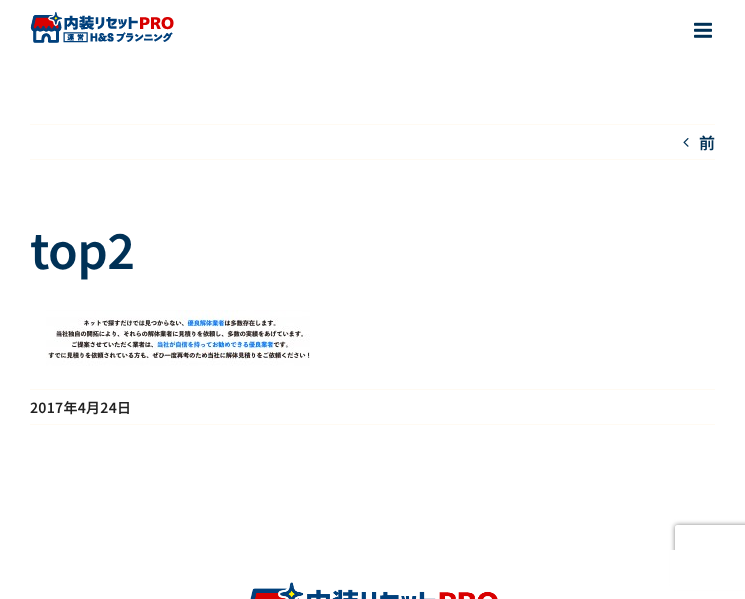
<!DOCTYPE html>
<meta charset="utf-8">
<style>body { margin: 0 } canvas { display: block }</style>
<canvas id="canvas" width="745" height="599"></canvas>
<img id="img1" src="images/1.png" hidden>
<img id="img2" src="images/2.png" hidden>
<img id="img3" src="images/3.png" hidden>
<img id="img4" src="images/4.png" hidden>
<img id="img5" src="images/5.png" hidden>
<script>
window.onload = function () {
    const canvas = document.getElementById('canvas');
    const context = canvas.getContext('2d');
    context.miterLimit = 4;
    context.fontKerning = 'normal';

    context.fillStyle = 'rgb(255, 255, 255)';
    context.fillRect(0, 0, 745, 599);
    context.drawImage(document.getElementById('img1'), 30, 12, 144, 31);
    context.drawImage(document.getElementById('img2'), 694, 22, 18, 16);
    context.fillStyle = 'rgb(255, 250, 242)';
    context.fillRect(30, 124, 685, 1);
    context.fillRect(30, 159, 685, 1);
    context.drawImage(document.getElementById('img3'), 683, 138, 6, 9);
    context.drawImage(document.getElementById('img4'), 46, 310, 264, 56);
    context.fillRect(30, 389, 685, 1);
    context.fillRect(30, 424, 685, 1);
    context.save();
    context.beginPath();
    context.moveTo(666, 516);
    context.lineTo(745, 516);
    context.lineTo(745, 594);
    context.lineTo(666, 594);
    context.closePath();
    context.moveTo(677, 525);
    context.lineTo(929, 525);
    context.bezierCurveTo(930, 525, 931, 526, 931, 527);
    context.lineTo(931, 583);
    context.bezierCurveTo(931, 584, 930, 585, 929, 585);
    context.lineTo(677, 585);
    context.bezierCurveTo(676, 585, 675, 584, 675, 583);
    context.lineTo(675, 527);
    context.bezierCurveTo(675, 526, 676, 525, 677, 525);
    context.closePath();
    context.clip('evenodd');
    context.fillStyle = 'rgb(128, 128, 128)';
    context.filter = 'blur(2.5px)';
    context.beginPath();
    context.roundRect(675, 525, 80, 60, 2);
    context.fill();
    context.filter = 'none';
    context.restore();
    context.fillStyle = 'rgb(255, 255, 255)';
    context.fillRect(670, 550, 75, 40);
    context.drawImage(document.getElementById('img5'), 250, 582, 248, 17);
    context.letterSpacing = '0.25px';
    context.font = '600 16px Noto Sans JP';
    context.fillStyle = 'rgb(0, 49, 86)';
    context.fillText('前', 699, 149);
    context.letterSpacing = '-0.5px';
    context.font = '600 48px Noto Sans JP';
    context.fillText('top2', 30, 269);
    context.letterSpacing = '0.25px';
    context.font = '600 14px Noto Sans JP';
    context.fillStyle = 'rgb(34, 34, 34)';
    context.fillText('2017年4月24日', 30, 413);
};
</script>
